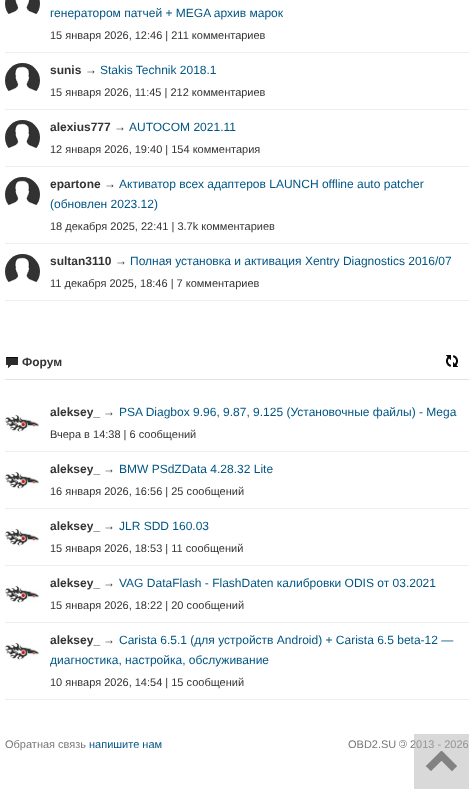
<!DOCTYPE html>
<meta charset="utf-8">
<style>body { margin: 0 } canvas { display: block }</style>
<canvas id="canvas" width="474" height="794"></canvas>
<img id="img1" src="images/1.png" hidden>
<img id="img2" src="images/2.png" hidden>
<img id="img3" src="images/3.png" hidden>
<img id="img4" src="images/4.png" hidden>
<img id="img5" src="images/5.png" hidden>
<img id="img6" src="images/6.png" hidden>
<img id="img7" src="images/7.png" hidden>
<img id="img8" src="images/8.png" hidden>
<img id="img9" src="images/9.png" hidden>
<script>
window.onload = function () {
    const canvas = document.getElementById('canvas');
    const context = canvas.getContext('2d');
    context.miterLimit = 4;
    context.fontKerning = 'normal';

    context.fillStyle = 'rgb(255, 255, 255)';
    context.fillRect(0, 0, 474, 794);
    context.fillStyle = 'rgb(238, 238, 238)';
    context.fillRect(5, 52, 464, 1);
    context.drawImage(document.getElementById('img1'), 5, 0, 35, 15);
    context.fillRect(5, 109, 464, 1);
    context.drawImage(document.getElementById('img2'), 5, 63, 35, 29);
    context.fillRect(5, 166, 464, 1);
    context.drawImage(document.getElementById('img2'), 5, 120, 35, 29);
    context.fillRect(5, 243, 464, 1);
    context.drawImage(document.getElementById('img3'), 5, 177, 35, 29);
    context.fillRect(5, 300, 464, 1);
    context.drawImage(document.getElementById('img4'), 5, 254, 35, 29);
    context.fillStyle = 'rgb(227, 227, 227)';
    context.fillRect(5, 379, 464, 1);
    context.drawImage(document.getElementById('img5'), 6, 357, 12, 11);
    context.drawImage(document.getElementById('img6'), 445, 355, 14, 12);
    context.fillStyle = 'rgb(238, 238, 238)';
    context.fillRect(5, 451, 464, 1);
    context.drawImage(document.getElementById('img7'), 5, 415, 34, 17);
    context.fillRect(5, 508, 464, 1);
    context.drawImage(document.getElementById('img8'), 5, 472, 34, 17);
    context.fillRect(5, 565, 464, 1);
    context.drawImage(document.getElementById('img8'), 5, 529, 34, 17);
    context.fillRect(5, 622, 464, 1);
    context.drawImage(document.getElementById('img8'), 5, 586, 34, 17);
    context.fillRect(5, 699, 464, 1);
    context.drawImage(document.getElementById('img8'), 5, 643, 34, 17);
    context.font = '12px Liberation Sans';
    context.fillStyle = 'rgb(0, 85, 132)';
    context.fillText('генератором патчей + MEGA архив марок', 50, 17);
    context.font = '11px Liberation Sans';
    context.fillStyle = 'rgb(51, 51, 51)';
    context.fillText('15 января 2026, 12:46 | 211 комментариев', 50, 39);
    context.font = 'bold 12px Liberation Sans';
    context.fillText('sunis', 50, 74);
    context.font = '12px Liberation Sans';
    context.fillText('→', 85, 74);
    context.fillStyle = 'rgb(0, 85, 132)';
    context.fillText('Stakis Technik 2018.1', 100, 74);
    context.font = '11px Liberation Sans';
    context.fillStyle = 'rgb(51, 51, 51)';
    context.fillText('15 января 2026, 11:45 | 212 комментариев', 50, 96);
    context.font = 'bold 12px Liberation Sans';
    context.fillText('alexius777', 50, 131);
    context.font = '12px Liberation Sans';
    context.fillText('→', 114, 131);
    context.fillStyle = 'rgb(0, 85, 132)';
    context.fillText('AUTOCOM 2021.11', 129, 131);
    context.font = '11px Liberation Sans';
    context.fillStyle = 'rgb(51, 51, 51)';
    context.fillText('12 января 2026, 19:40 | 154 комментария', 50, 153);
    context.font = 'bold 12px Liberation Sans';
    context.fillText('epartone', 50, 188);
    context.font = '12px Liberation Sans';
    context.fillText('→', 104, 188);
    context.fillStyle = 'rgb(0, 85, 132)';
    context.fillText('Активатор всех адаптеров LAUNCH offline auto patcher', 119, 188);
    context.fillText('(обновлен 2023.12)', 50, 208);
    context.font = '11px Liberation Sans';
    context.fillStyle = 'rgb(51, 51, 51)';
    context.fillText('18 декабря 2025, 22:41 | 3.7k комментариев', 50, 230);
    context.font = 'bold 12px Liberation Sans';
    context.fillText('sultan3110', 50, 265);
    context.font = '12px Liberation Sans';
    context.fillText('→', 115, 265);
    context.fillStyle = 'rgb(0, 85, 132)';
    context.fillText('Полная установка и активация Xentry Diagnostics 2016/07', 130, 265);
    context.font = '11px Liberation Sans';
    context.fillStyle = 'rgb(51, 51, 51)';
    context.fillText('11 декабря 2025, 18:46 | 7 комментариев', 50, 287);
    context.font = 'bold 12px Liberation Sans';
    context.fillText('Форум', 22, 366);
    context.fillText('aleksey_', 50, 416);
    context.font = '12px Liberation Sans';
    context.fillText('→', 103, 416);
    context.fillStyle = 'rgb(0, 85, 132)';
    context.fillText('PSA Diagbox 9.96, 9.87, 9.125 (Установочные файлы) - Mega', 119, 416);
    context.font = '11px Liberation Sans';
    context.fillStyle = 'rgb(51, 51, 51)';
    context.fillText('Вчера в 14:38 | 6 сообщений', 50, 438);
    context.font = 'bold 12px Liberation Sans';
    context.fillText('aleksey_', 50, 473);
    context.font = '12px Liberation Sans';
    context.fillText('→', 103, 473);
    context.fillStyle = 'rgb(0, 85, 132)';
    context.fillText('BMW PSdZData 4.28.32 Lite', 119, 473);
    context.font = '11px Liberation Sans';
    context.fillStyle = 'rgb(51, 51, 51)';
    context.fillText('16 января 2026, 16:56 | 25 сообщений', 50, 495);
    context.font = 'bold 12px Liberation Sans';
    context.fillText('aleksey_', 50, 530);
    context.font = '12px Liberation Sans';
    context.fillText('→', 103, 530);
    context.fillStyle = 'rgb(0, 85, 132)';
    context.fillText('JLR SDD 160.03', 119, 530);
    context.font = '11px Liberation Sans';
    context.fillStyle = 'rgb(51, 51, 51)';
    context.fillText('15 января 2026, 18:53 | 11 сообщений', 50, 552);
    context.font = 'bold 12px Liberation Sans';
    context.fillText('aleksey_', 50, 587);
    context.font = '12px Liberation Sans';
    context.fillText('→', 103, 587);
    context.fillStyle = 'rgb(0, 85, 132)';
    context.fillText('VAG DataFlash - FlashDaten калибровки ODIS от 03.2021', 119, 587);
    context.font = '11px Liberation Sans';
    context.fillStyle = 'rgb(51, 51, 51)';
    context.fillText('15 января 2026, 18:22 | 20 сообщений', 50, 609);
    context.font = 'bold 12px Liberation Sans';
    context.fillText('aleksey_', 50, 644);
    context.font = '12px Liberation Sans';
    context.fillText('→', 103, 644);
    context.fillStyle = 'rgb(0, 85, 132)';
    context.fillText('Carista 6.5.1 (для устройств Android) + Carista 6.5 beta-12 —', 119, 644);
    context.fillText('диагностика, настройка, обслуживание', 50, 664);
    context.font = '11px Liberation Sans';
    context.fillStyle = 'rgb(51, 51, 51)';
    context.fillText('10 января 2026, 14:54 | 15 сообщений', 50, 686);
    context.fillStyle = 'rgb(119, 119, 119)';
    context.fillText('Обратная связь', 5, 748);
    context.fillStyle = 'rgb(0, 85, 132)';
    context.fillText('напишите нам', 89, 748);
    context.fillStyle = 'rgb(119, 119, 119)';
    context.fillText('OBD2.SU', 348, 748);
    context.save();
    context.translate(407, 740);
    context.rotate(180 * Math.PI / 180);
    context.fillText('©', 0, 0);
    context.restore();
    context.fillText('2013 - 2026', 410, 748);
    context.fillStyle = 'rgba(180, 180, 180, 0.5)';
    context.fillRect(414, 734, 55, 55);
    context.drawImage(document.getElementById('img9'), 425, 751, 32, 20);
};
</script>
